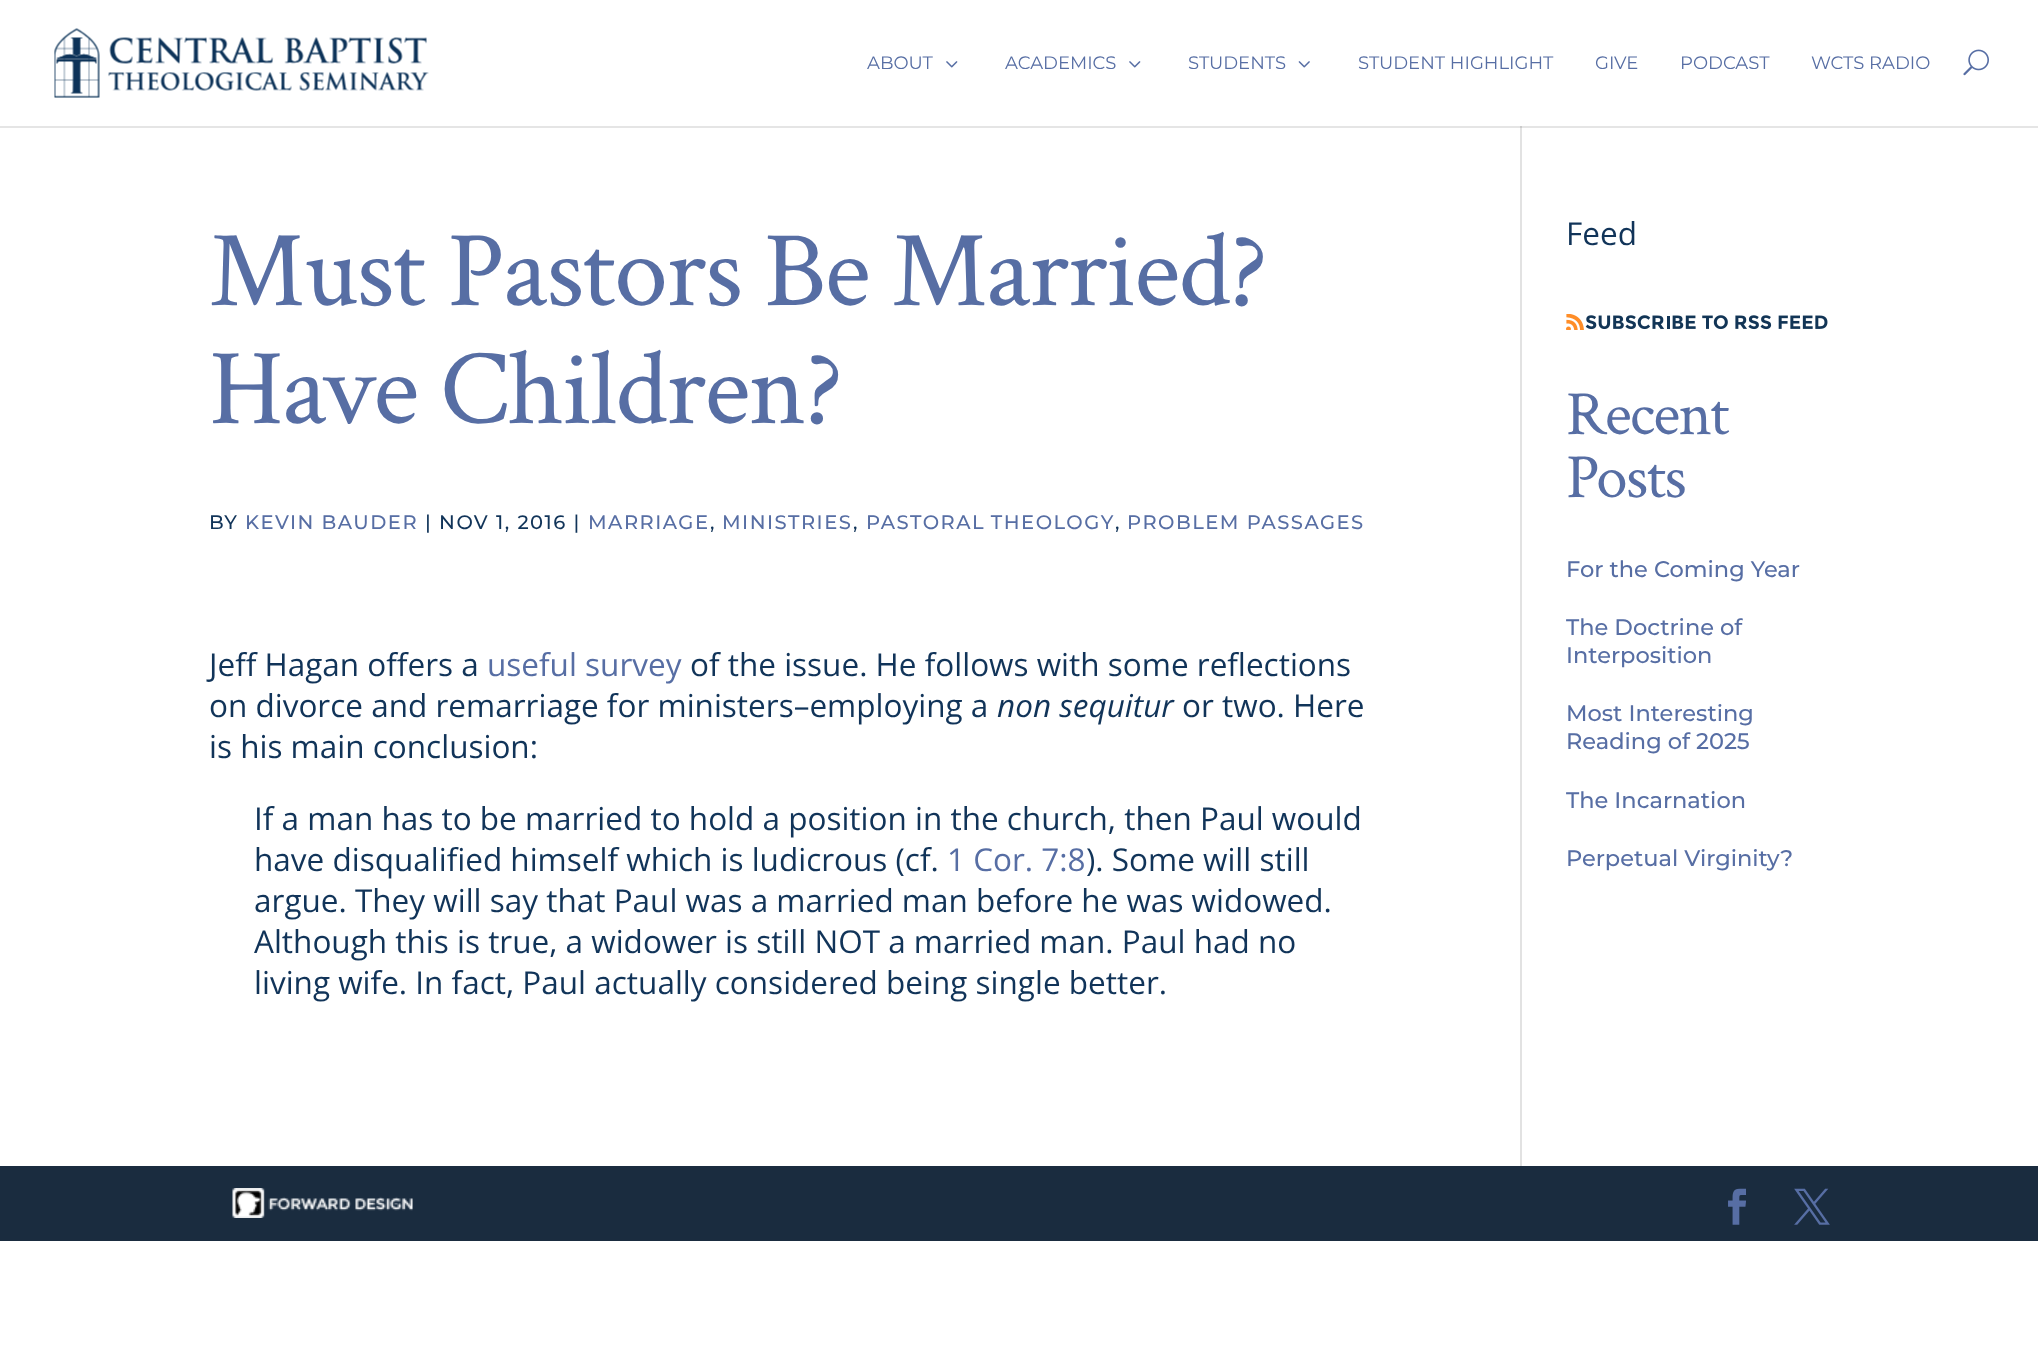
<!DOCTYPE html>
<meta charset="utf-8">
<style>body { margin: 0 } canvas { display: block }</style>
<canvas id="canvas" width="2038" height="1359"></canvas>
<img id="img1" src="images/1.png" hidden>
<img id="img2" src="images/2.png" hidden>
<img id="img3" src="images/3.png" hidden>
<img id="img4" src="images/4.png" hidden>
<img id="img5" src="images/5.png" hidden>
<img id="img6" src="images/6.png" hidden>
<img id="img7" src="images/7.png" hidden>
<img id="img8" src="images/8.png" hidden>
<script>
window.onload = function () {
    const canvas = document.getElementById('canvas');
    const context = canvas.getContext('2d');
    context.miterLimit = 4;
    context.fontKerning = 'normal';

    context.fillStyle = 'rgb(255, 255, 255)';
    context.fillRect(0, 0, 2038, 1359);
    context.fillStyle = 'rgb(226, 226, 226)';
    context.fillRect(1520, 126, 2, 1040);
    context.fillStyle = 'rgba(0, 0, 0, 0.1)';
    context.beginPath();
    context.moveTo(0, 126);
    context.lineTo(0, 128);
    context.lineTo(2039, 128);
    context.lineTo(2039, 2);
    context.lineTo(2038, 2);
    context.lineTo(2038, 126);
    context.closePath();
    context.fill();
    context.drawImage(document.getElementById('img1'), 54, 28, 375, 70);
    context.drawImage(document.getElementById('img2'), 946, 61, 12, 7);
    context.drawImage(document.getElementById('img2'), 1129, 61, 12, 7);
    context.drawImage(document.getElementById('img3'), 1298, 61, 12, 7);
    context.drawImage(document.getElementById('img4'), 1963, 49, 26, 27);
    context.drawImage(document.getElementById('img5'), 1566, 314, 262, 16);
    context.fillStyle = 'rgb(26, 44, 63)';
    context.fillRect(0, 1166, 2038, 75);
    context.drawImage(document.getElementById('img6'), 232, 1188, 181, 30);
    context.drawImage(document.getElementById('img7'), 1728, 1188, 18, 37);
    context.drawImage(document.getElementById('img8'), 1794, 1188, 36, 37);
    context.font = '18px Montserrat';
    context.fillStyle = 'rgb(87, 110, 164)';
    context.fillText('ABOUT', 867, 69);
    context.fillText('ACADEMICS', 1005, 69);
    context.fillText('STUDENTS', 1188, 69);
    context.fillText('STUDENT HIGHLIGHT', 1358, 69);
    context.fillText('GIVE', 1595, 69);
    context.fillText('PODCAST', 1680, 69);
    context.fillText('WCTS RADIO', 1811, 69);
    context.letterSpacing = '-1.5px';
    context.font = '108px Crimson Text';
    context.fillText('Must Pastors Be Married?', 209, 305);
    context.fillText('Have Children?', 209, 423);
    context.letterSpacing = '1.5px';
    context.font = '500 19.5px Montserrat';
    context.fillStyle = 'rgb(17, 52, 89)';
    context.fillText('BY', 209, 529);
    context.fillStyle = 'rgb(87, 110, 164)';
    context.fillText('KEVIN BAUDER', 245, 529);
    context.fillStyle = 'rgb(17, 52, 89)';
    context.fillText('| NOV 1, 2016 |', 425, 529);
    context.fillStyle = 'rgb(87, 110, 164)';
    context.fillText('MARRIAGE', 588, 529);
    context.fillStyle = 'rgb(17, 52, 89)';
    context.fillText(',', 710, 529);
    context.fillStyle = 'rgb(87, 110, 164)';
    context.fillText('MINISTRIES', 722, 529);
    context.fillStyle = 'rgb(17, 52, 89)';
    context.fillText(',', 853, 529);
    context.wordSpacing = '-1px';
    context.fillStyle = 'rgb(87, 110, 164)';
    context.fillText('PASTORAL THEOLOGY', 866, 529);
    context.wordSpacing = '0px';
    context.fillStyle = 'rgb(17, 52, 89)';
    context.fillText(',', 1115, 529);
    context.fillStyle = 'rgb(87, 110, 164)';
    context.fillText('PROBLEM PASSAGES', 1127, 529);
    context.letterSpacing = '0px';
    context.font = '31.5px Open Sans';
    context.fillStyle = 'rgb(17, 52, 89)';
    context.fillText('Jeff Hagan offers a', 209, 676);
    context.fillStyle = 'rgb(87, 110, 164)';
    context.fillText('useful survey', 487, 676);
    context.fillStyle = 'rgb(17, 52, 89)';
    context.fillText('of the issue. He follows with some reflections', 690, 676);
    context.fillText('on divorce and remarriage for ministers–employing a', 209, 717);
    context.font = 'italic 31.5px Open Sans';
    context.fillText('non sequitur', 997, 717);
    context.font = '31.5px Open Sans';
    context.fillText('or two. Here', 1182, 717);
    context.fillText('is his main conclusion:', 209, 758);
    context.fillText('If a man has to be married to hold a position in the church, then Paul would', 254, 830);
    context.fillText('have disqualified himself which is ludicrous (cf.', 254, 871);
    context.fillStyle = 'rgb(87, 110, 164)';
    context.fillText('1 Cor. 7:8', 947, 871);
    context.fillStyle = 'rgb(17, 52, 89)';
    context.fillText('). Some will still', 1086, 871);
    context.fillText('argue. They will say that Paul was a married man before he was widowed.', 254, 912);
    context.fillText('Although this is true, a widower is still NOT a married man. Paul had no', 254, 953);
    context.fillText('living wife. In fact, Paul actually considered being single better.', 254, 994);
    context.fillText('Feed', 1566, 245);
    context.letterSpacing = '-1.5px';
    context.font = '63px Crimson Text';
    context.fillStyle = 'rgb(87, 110, 164)';
    context.fillText('Recent', 1566, 434);
    context.fillText('Posts', 1566, 497);
    context.letterSpacing = '0px';
    context.font = '500 22.5px Montserrat';
    context.fillText('For the Coming Year', 1566, 577);
    context.fillText('The Doctrine of', 1566, 635);
    context.fillText('Interposition', 1566, 663);
    context.fillText('Most Interesting', 1566, 721);
    context.fillText('Reading of 2025', 1566, 749);
    context.fillText('The Incarnation', 1566, 808);
    context.fillText('Perpetual Virginity?', 1566, 866);
};
</script>
